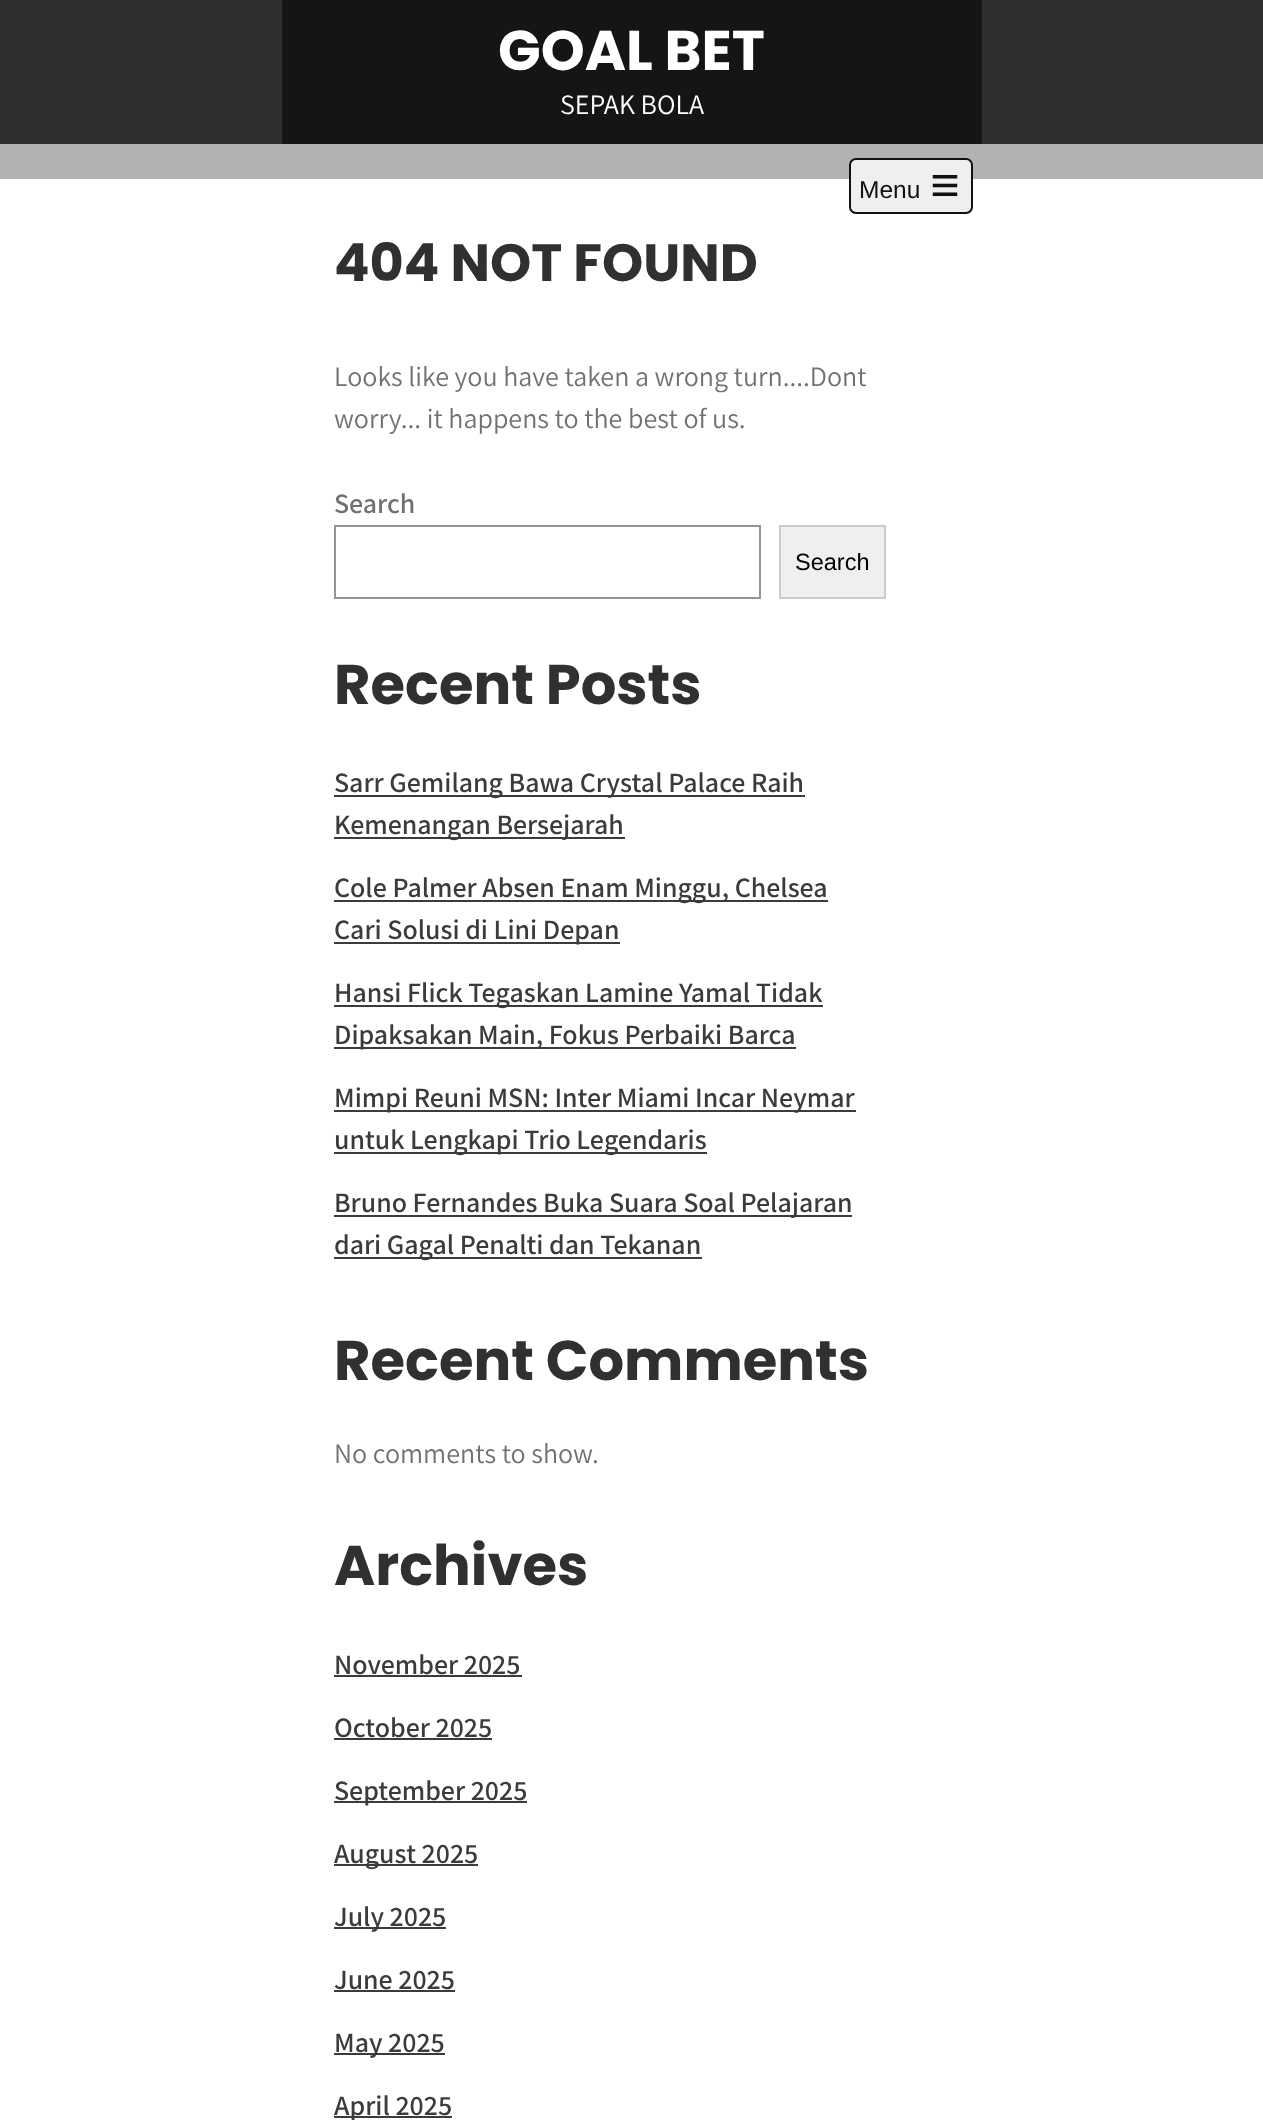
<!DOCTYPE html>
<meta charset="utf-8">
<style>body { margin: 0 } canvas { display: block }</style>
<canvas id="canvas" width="1263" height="2120"></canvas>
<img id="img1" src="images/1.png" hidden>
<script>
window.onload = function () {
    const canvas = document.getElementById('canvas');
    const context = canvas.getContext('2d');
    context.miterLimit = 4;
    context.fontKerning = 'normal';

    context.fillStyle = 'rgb(255, 255, 255)';
    context.fillRect(0, 0, 1263, 2120);
    context.fillStyle = 'rgba(0, 0, 0, 0.3)';
    context.fillRect(0, 144, 1263, 35);
    context.fillStyle = 'rgb(47, 47, 47)';
    context.fillRect(0, 0, 1263, 144);
    context.fillStyle = 'rgb(21, 21, 21)';
    context.fillRect(282, 0, 700, 144);
    context.fillStyle = 'rgb(239, 239, 239)';
    context.beginPath();
    context.roundRect(850, 159, 122, 54, 6);
    context.fill();
    context.strokeStyle = 'rgb(17, 17, 17)';
    context.lineWidth = 2;
    context.stroke();
    context.drawImage(document.getElementById('img1'), 932, 174, 26, 23);
    context.strokeStyle = 'rgb(148, 148, 148)';
    context.strokeRect(335, 526, 425, 72);
    context.beginPath();
    context.rect(780, 526, 105, 72);
    context.fill();
    context.strokeStyle = 'rgb(204, 204, 204)';
    context.stroke();
    context.fillStyle = 'rgb(59, 59, 59)';
    context.fillRect(334, 795, 471, 2);
    context.fillRect(334, 837, 291, 2);
    context.fillRect(334, 900, 494, 2);
    context.fillRect(334, 942, 286, 2);
    context.fillRect(334, 1005, 489, 2);
    context.fillRect(334, 1047, 462, 2);
    context.fillRect(334, 1110, 522, 2);
    context.fillRect(334, 1152, 373, 2);
    context.fillRect(334, 1215, 518, 2);
    context.fillRect(334, 1257, 368, 2);
    context.fillRect(334, 1675, 188, 2);
    context.fillRect(334, 1738, 158, 2);
    context.fillRect(334, 1801, 193, 2);
    context.fillRect(334, 1864, 144, 2);
    context.fillRect(334, 1927, 112, 2);
    context.fillRect(334, 1990, 121, 2);
    context.fillRect(334, 2053, 111, 2);
    context.fillRect(334, 2116, 118, 2);
    context.font = 'bold 56px Poppins';
    context.fillStyle = 'rgb(255, 255, 255)';
    context.fillText('GOAL BET', 498, 70);
    context.font = '28px Assistant';
    context.fillText('SEPAK BOLA', 560, 114);
    context.font = '24.5px Liberation Sans';
    context.fillStyle = 'rgb(17, 17, 17)';
    context.fillText('Menu', 859, 198);
    context.font = 'bold 52.5px Poppins';
    context.fillStyle = 'rgb(48, 48, 48)';
    context.fillText('404 NOT FOUND', 334, 281);
    context.font = '28px Assistant';
    context.fillStyle = 'rgb(113, 113, 113)';
    context.fillText('Looks like you have taken a wrong turn....Dont', 334, 386);
    context.fillText('worry... it happens to the best of us.', 334, 428);
    context.font = '600 28px Assistant';
    context.fillText('Search', 334, 513);
    context.font = '23.5px Liberation Sans';
    context.fillStyle = 'rgb(0, 0, 0)';
    context.fillText('Search', 795, 570);
    context.font = 'bold 56px Poppins';
    context.fillStyle = 'rgb(48, 48, 48)';
    context.fillText('Recent Posts', 334, 704);
    context.font = '600 28px Assistant';
    context.fillStyle = 'rgb(59, 59, 59)';
    context.fillText('Sarr Gemilang Bawa Crystal Palace Raih', 334, 792);
    context.fillText('Kemenangan Bersejarah', 334, 834);
    context.fillText('Cole Palmer Absen Enam Minggu, Chelsea', 334, 897);
    context.fillText('Cari Solusi di Lini Depan', 334, 939);
    context.fillText('Hansi Flick Tegaskan Lamine Yamal Tidak', 334, 1002);
    context.fillText('Dipaksakan Main, Fokus Perbaiki Barca', 334, 1044);
    context.fillText('Mimpi Reuni MSN: Inter Miami Incar Neymar', 334, 1107);
    context.fillText('untuk Lengkapi Trio Legendaris', 334, 1149);
    context.fillText('Bruno Fernandes Buka Suara Soal Pelajaran', 334, 1212);
    context.fillText('dari Gagal Penalti dan Tekanan', 334, 1254);
    context.font = 'bold 56px Poppins';
    context.fillStyle = 'rgb(48, 48, 48)';
    context.fillText('Recent Comments', 334, 1380);
    context.font = '28px Assistant';
    context.fillStyle = 'rgb(113, 113, 113)';
    context.fillText('No comments to show.', 334, 1463);
    context.font = 'bold 56px Poppins';
    context.fillStyle = 'rgb(48, 48, 48)';
    context.fillText('Archives', 334, 1585);
    context.font = '600 28px Assistant';
    context.fillStyle = 'rgb(59, 59, 59)';
    context.fillText('November 2025', 334, 1674);
    context.fillText('October 2025', 334, 1737);
    context.fillText('September 2025', 334, 1800);
    context.fillText('August 2025', 334, 1863);
    context.fillText('July 2025', 334, 1926);
    context.fillText('June 2025', 334, 1989);
    context.fillText('May 2025', 334, 2052);
    context.fillText('April 2025', 334, 2115);
};
</script>
